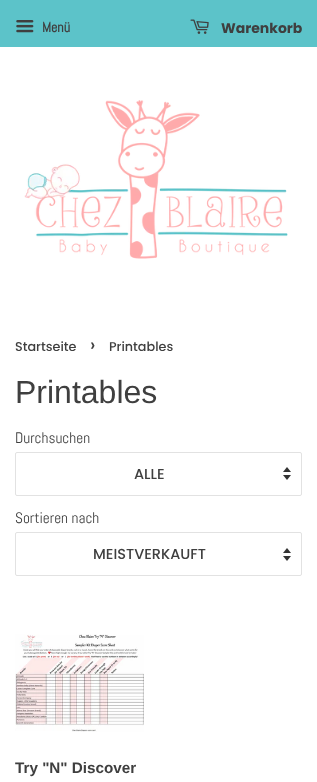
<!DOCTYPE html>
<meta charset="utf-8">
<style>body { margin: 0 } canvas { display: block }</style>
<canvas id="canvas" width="317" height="782"></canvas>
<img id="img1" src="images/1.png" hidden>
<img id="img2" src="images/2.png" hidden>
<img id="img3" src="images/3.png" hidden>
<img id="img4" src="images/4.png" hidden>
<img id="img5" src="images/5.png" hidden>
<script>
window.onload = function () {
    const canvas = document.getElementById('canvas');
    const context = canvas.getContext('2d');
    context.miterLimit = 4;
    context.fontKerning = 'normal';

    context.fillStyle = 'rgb(255, 255, 255)';
    context.fillRect(0, 0, 317, 782);
    context.fillStyle = 'rgb(92, 195, 201)';
    context.fillRect(0, 0, 317, 47);
    context.drawImage(document.getElementById('img1'), 16, 20, 18, 13);
    context.drawImage(document.getElementById('img2'), 190, 19, 19, 15);
    context.drawImage(document.getElementById('img3'), 24, 100, 264, 159);
    context.drawImage(document.getElementById('img4'), 283, 467, 8, 13);
    context.beginPath();
    context.roundRect(15.5, 452.5, 286, 43, 1.5);
    context.strokeStyle = 'rgb(226, 226, 226)';
    context.stroke();
    context.drawImage(document.getElementById('img4'), 283, 548, 8, 13);
    context.beginPath();
    context.roundRect(15.5, 532.5, 286, 43, 1.5);
    context.stroke();
    context.drawImage(document.getElementById('img5'), 15, 634, 129, 98);
    context.font = 'bold 14px Abel';
    context.fillStyle = 'rgb(63, 63, 63)';
    context.fillText('Menü', 42, 32);
    context.font = 'bold 14px Poppins';
    context.fillText('Warenkorb', 221, 33);
    context.font = '500 12.75px Poppins';
    context.fillText('Startseite', 15, 351);
    context.font = '500 18px Poppins';
    context.fillText('›', 90, 351);
    context.font = '500 12.75px Poppins';
    context.fillText('Printables', 109, 351);
    context.font = '32px Liberation Sans';
    context.fillText('Printables', 15, 403);
    context.font = '15.25px Abel';
    context.fillText('Durchsuchen', 15, 443);
    context.font = '500 14.5px Poppins';
    context.fillText('ALLE', 134, 479);
    context.font = '15.25px Abel';
    context.fillText('Sortieren nach', 15, 523);
    context.font = '500 14.5px Poppins';
    context.fillText('MEISTVERKAUFT', 93, 559);
    context.font = 'bold 15.25px Liberation Sans';
    context.fillText('Try "N" Discover', 15, 773);
};
</script>
